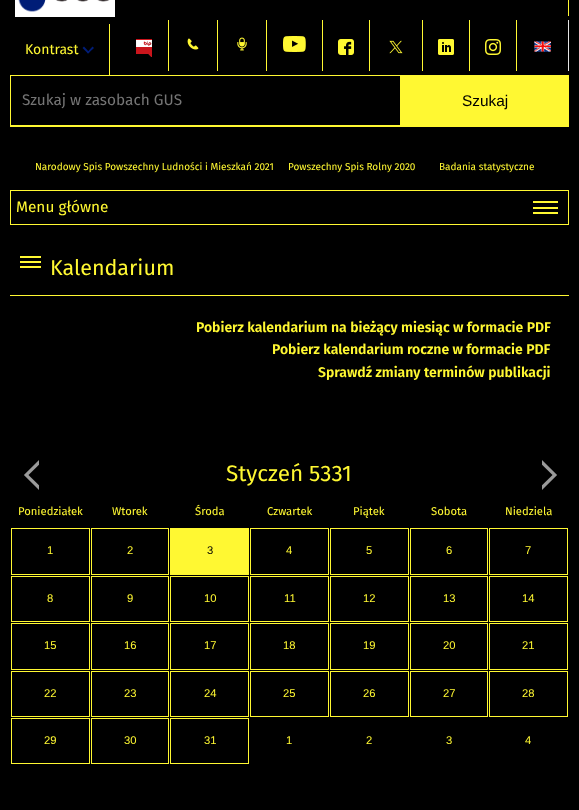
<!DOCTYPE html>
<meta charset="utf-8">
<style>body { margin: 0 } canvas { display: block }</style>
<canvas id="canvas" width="579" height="810"></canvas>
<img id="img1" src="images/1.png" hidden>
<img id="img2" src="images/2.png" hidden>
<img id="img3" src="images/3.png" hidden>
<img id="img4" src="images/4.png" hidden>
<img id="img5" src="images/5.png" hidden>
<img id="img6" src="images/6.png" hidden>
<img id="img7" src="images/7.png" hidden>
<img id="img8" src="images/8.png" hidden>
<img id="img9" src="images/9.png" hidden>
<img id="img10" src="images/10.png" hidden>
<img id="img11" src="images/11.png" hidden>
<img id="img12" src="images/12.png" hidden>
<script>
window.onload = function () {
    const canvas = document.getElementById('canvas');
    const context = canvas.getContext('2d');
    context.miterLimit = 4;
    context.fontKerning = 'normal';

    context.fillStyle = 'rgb(0, 0, 0)';
    context.fillRect(0, 0, 579, 810);
    context.fillStyle = 'rgb(255, 248, 50)';
    context.fillRect(10, 126, 559, 1);
    context.fillStyle = 'rgb(255, 255, 255)';
    context.fillRect(15, 0, 100, 17);
    context.drawImage(document.getElementById('img1'), 18, 0, 92, 12);
    context.fillStyle = 'rgb(255, 248, 50)';
    context.fillRect(568, 0, 1, 16);
    context.fillRect(109, 24, 1, 51);
    context.fillStyle = 'rgb(0, 29, 119)';
    context.beginPath();
    context.moveTo(92.5, 46.5);
    context.lineTo(94, 48);
    context.lineTo(88, 53.5);
    context.lineTo(87, 52.5);
    context.closePath();
    context.fill();
    context.beginPath();
    context.moveTo(84, 46.5);
    context.lineTo(89.5, 52.5);
    context.lineTo(88, 53.5);
    context.lineTo(82.5, 48);
    context.closePath();
    context.fill();
    context.fillStyle = 'rgb(255, 248, 50)';
    context.fillRect(168, 20, 1, 51);
    context.drawImage(document.getElementById('img2'), 136, 39, 16, 18);
    context.fillRect(217, 20, 1, 51);
    context.drawImage(document.getElementById('img3'), 187, 38, 12, 12);
    context.fillRect(266, 20, 1, 51);
    context.drawImage(document.getElementById('img4'), 237, 37, 10, 14);
    context.fillRect(322, 20, 1, 51);
    context.drawImage(document.getElementById('img5'), 283, 36, 23, 16);
    context.fillRect(369, 20, 1, 51);
    context.drawImage(document.getElementById('img6'), 338, 39, 16, 16);
    context.fillRect(422, 20, 1, 51);
    context.drawImage(document.getElementById('img7'), 389, 40, 14, 14);
    context.fillRect(469, 20, 1, 51);
    context.drawImage(document.getElementById('img8'), 438, 39, 16, 16);
    context.fillRect(516, 20, 1, 51);
    context.drawImage(document.getElementById('img9'), 485, 39, 16, 16);
    context.fillStyle = 'rgb(229, 229, 229)';
    context.fillRect(568, 20, 1, 51);
    context.drawImage(document.getElementById('img10'), 534, 41, 17, 11);
    context.strokeStyle = 'rgb(255, 248, 50)';
    context.strokeRect(10.5, 75.5, 390, 50);
    context.fillStyle = 'rgb(255, 248, 50)';
    context.fillRect(401, 75, 168, 51);
    context.strokeRect(10.5, 190.5, 558, 34);
    context.fillRect(533, 212, 25, 2);
    context.fillRect(533, 207, 25, 2);
    context.fillRect(533, 201, 25, 2);
    context.fillRect(10, 295, 559, 1);
    context.fillRect(20, 266, 21, 2);
    context.fillRect(20, 261, 21, 2);
    context.fillRect(20, 256, 21, 2);
    context.drawImage(document.getElementById('img11'), 24, 460, 15, 30);
    context.drawImage(document.getElementById('img12'), 542, 460, 15, 30);
    context.strokeRect(11.5, 528.5, 78, 46);
    context.strokeRect(91.5, 528.5, 77, 46);
    context.fillRect(170, 528, 79, 47);
    context.strokeRect(250.5, 528.5, 78, 46);
    context.strokeRect(330.5, 528.5, 78, 46);
    context.strokeRect(410.5, 528.5, 77, 46);
    context.strokeRect(489.5, 528.5, 78, 46);
    context.strokeRect(11.5, 576.5, 78, 45);
    context.strokeRect(91.5, 576.5, 77, 45);
    context.strokeRect(170.5, 576.5, 78, 45);
    context.strokeRect(250.5, 576.5, 78, 45);
    context.strokeRect(330.5, 576.5, 78, 45);
    context.strokeRect(410.5, 576.5, 77, 45);
    context.strokeRect(489.5, 576.5, 78, 45);
    context.strokeRect(11.5, 623.5, 78, 46);
    context.strokeRect(91.5, 623.5, 77, 46);
    context.strokeRect(170.5, 623.5, 78, 46);
    context.strokeRect(250.5, 623.5, 78, 46);
    context.strokeRect(330.5, 623.5, 78, 46);
    context.strokeRect(410.5, 623.5, 77, 46);
    context.strokeRect(489.5, 623.5, 78, 46);
    context.strokeRect(11.5, 671.5, 78, 45);
    context.strokeRect(91.5, 671.5, 77, 45);
    context.strokeRect(170.5, 671.5, 78, 45);
    context.strokeRect(250.5, 671.5, 78, 45);
    context.strokeRect(330.5, 671.5, 78, 45);
    context.strokeRect(410.5, 671.5, 77, 45);
    context.strokeRect(489.5, 671.5, 78, 45);
    context.strokeRect(11.5, 718.5, 78, 45);
    context.strokeRect(91.5, 718.5, 77, 45);
    context.strokeRect(170.5, 718.5, 78, 45);
    context.font = '14px Fira Sans';
    context.fillText('Kontrast', 25, 54);
    context.font = '15.4px Fira Sans';
    context.fillStyle = 'rgb(117, 117, 117)';
    context.fillText('Szukaj w zasobach GUS', 22, 105);
    context.font = '15.4px Liberation Sans';
    context.fillStyle = 'rgb(0, 0, 0)';
    context.fillText('Szukaj', 462, 106);
    context.font = '10px Fira Sans';
    context.fillStyle = 'rgb(255, 248, 50)';
    context.fillText('Narodowy Spis Powszechny Ludności i Mieszkań 2021', 35, 170);
    context.fillText('Powszechny Spis Rolny 2020', 288, 170);
    context.fillText('Badania statystyczne', 439, 170);
    context.font = '15.4px Fira Sans';
    context.fillText('Menu główne', 16, 212);
    context.font = '21.5px Fira Sans';
    context.fillText('Kalendarium', 50, 275);
    context.font = '600 14px Fira Sans';
    context.fillText('Pobierz kalendarium na bieżący miesiąc w formacie PDF', 196, 332);
    context.fillText('Pobierz kalendarium roczne w formacie PDF', 272, 354);
    context.fillText('Sprawdź zmiany terminów publikacji', 318, 377);
    context.font = '22.5px Fira Sans';
    context.fillText('Styczeń 5331', 226, 481);
    context.font = '11.25px Fira Sans';
    context.fillText('Poniedziałek', 18, 515);
    context.fillText('Wtorek', 112, 515);
    context.fillText('Środa', 195, 515);
    context.fillText('Czwartek', 267, 515);
    context.fillText('Piątek', 353, 515);
    context.fillText('Sobota', 431, 515);
    context.fillText('Niedziela', 505, 515);
    context.font = '11.25px Liberation Sans';
    context.fillText('1', 47, 554);
    context.fillText('2', 127, 554);
    context.fillStyle = 'rgb(0, 0, 0)';
    context.fillText('3', 207, 554);
    context.fillStyle = 'rgb(255, 248, 50)';
    context.fillText('4', 286, 554);
    context.fillText('5', 366, 554);
    context.fillText('6', 446, 554);
    context.fillText('7', 525, 554);
    context.fillText('8', 47, 602);
    context.fillText('9', 127, 602);
    context.fillText('10', 204, 602);
    context.fillText('11', 284, 602);
    context.fillText('12', 363, 602);
    context.fillText('13', 443, 602);
    context.fillText('14', 522, 602);
    context.fillText('15', 44, 649);
    context.fillText('16', 124, 649);
    context.fillText('17', 204, 649);
    context.fillText('18', 283, 649);
    context.fillText('19', 363, 649);
    context.fillText('20', 443, 649);
    context.fillText('21', 522, 649);
    context.fillText('22', 44, 697);
    context.fillText('23', 124, 697);
    context.fillText('24', 204, 697);
    context.fillText('25', 283, 697);
    context.fillText('26', 363, 697);
    context.fillText('27', 443, 697);
    context.fillText('28', 522, 697);
    context.fillText('29', 44, 744);
    context.fillText('30', 124, 744);
    context.fillText('31', 204, 744);
    context.fillText('1', 286, 744);
    context.fillText('2', 366, 744);
    context.fillText('3', 446, 744);
    context.fillText('4', 525, 744);
};
</script>
